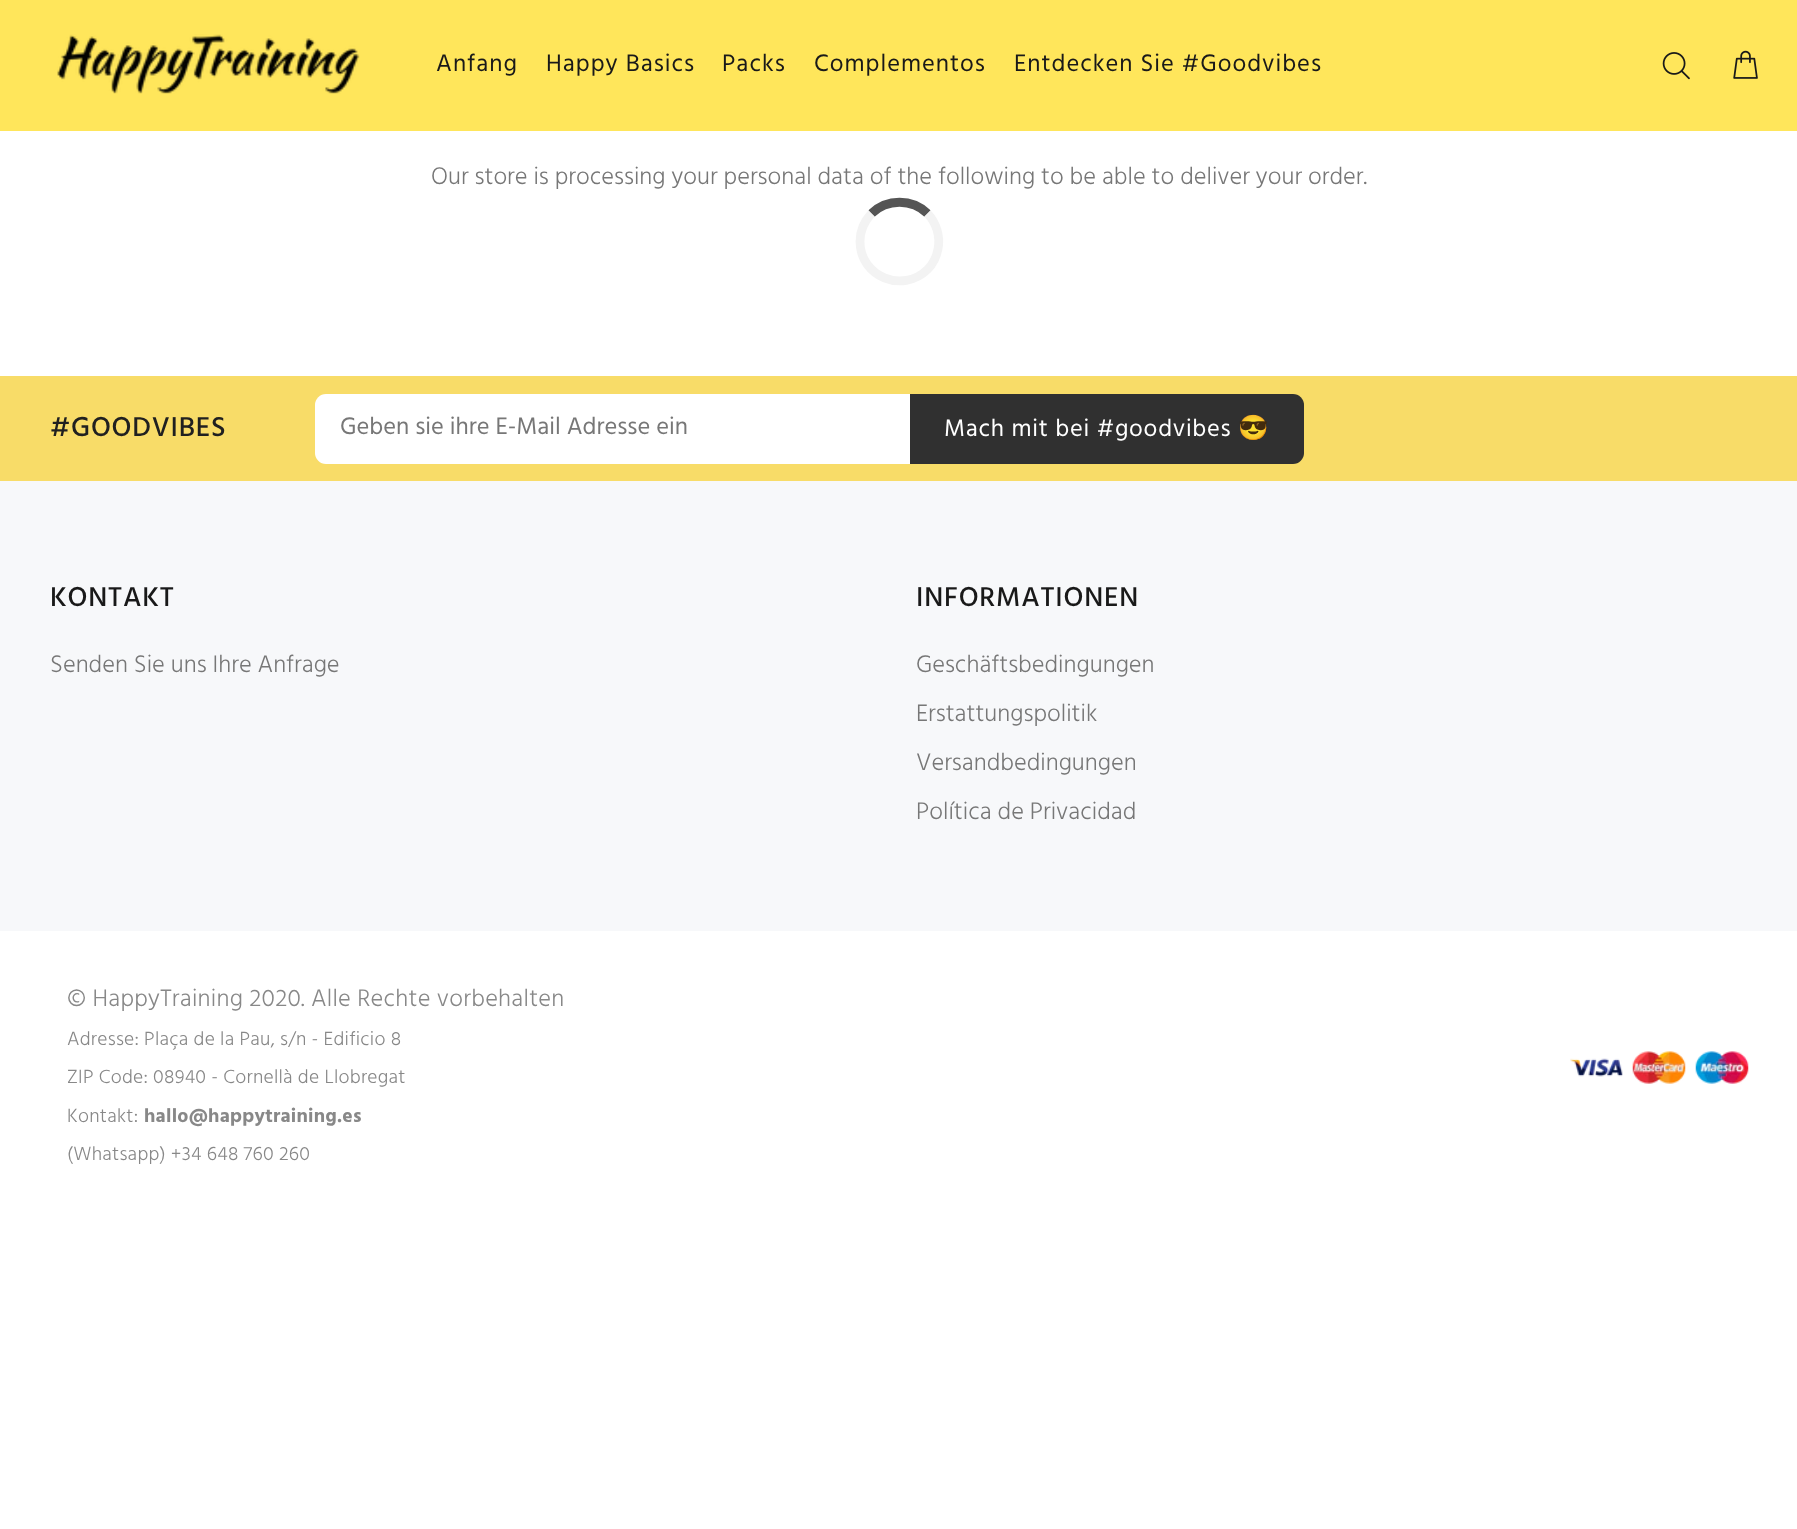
<!DOCTYPE html>
<meta charset="utf-8">
<style>body { margin: 0 } canvas { display: block }</style>
<canvas id="canvas" width="1797" height="1529"></canvas>
<img id="img1" src="images/1.png" hidden>
<img id="img2" src="images/2.png" hidden>
<img id="img3" src="images/3.png" hidden>
<img id="img4" src="images/4.png" hidden>
<img id="img5" src="images/5.png" hidden>
<img id="img6" src="images/6.png" hidden>
<script>
window.onload = function () {
    const canvas = document.getElementById('canvas');
    const context = canvas.getContext('2d');
    context.miterLimit = 4;
    context.fontKerning = 'normal';

    context.fillStyle = 'rgb(255, 255, 255)';
    context.fillRect(0, 0, 1797, 1529);
    context.fillStyle = 'rgb(255, 230, 91)';
    context.fillRect(0, 0, 1797, 131);
    context.drawImage(document.getElementById('img1'), 57, 34, 303, 60);
    context.drawImage(document.getElementById('img2'), 1662, 52, 28, 28);
    context.drawImage(document.getElementById('img3'), 1733, 50, 25, 29);
    context.beginPath();
    context.moveTo(871.5, 213.5);
    context.bezierCurveTo(887, 198.5, 912, 198.5, 927.5, 213.5);
    context.strokeStyle = 'rgb(85, 85, 85)';
    context.lineWidth = 8.8;
    context.stroke();
    context.beginPath();
    context.moveTo(927.5, 213.5);
    context.bezierCurveTo(936.5, 223, 940.5, 236.5, 938, 249);
    context.bezierCurveTo(936.5, 257, 933, 264, 927.5, 269.5);
    context.bezierCurveTo(902.5, 294, 860, 276.5, 860, 241.5);
    context.bezierCurveTo(860, 231, 864.5, 221, 871.5, 213.5);
    context.strokeStyle = 'rgb(243, 243, 243)';
    context.stroke();
    context.fillStyle = 'rgb(247, 248, 250)';
    context.fillRect(0, 481, 1797, 450);
    context.fillStyle = 'rgb(248, 220, 104)';
    context.fillRect(0, 376, 1797, 105);
    context.fillStyle = 'rgb(255, 255, 255)';
    context.beginPath();
    context.roundRect(315, 394, 595, 70, [11, 0, 0, 11]);
    context.fill();
    context.fillStyle = 'rgb(48, 48, 48)';
    context.beginPath();
    context.roundRect(910, 394, 394, 70, [0, 11, 11, 0]);
    context.fill();
    context.drawImage(document.getElementById('img4'), 1570, 1058, 53, 19);
    context.drawImage(document.getElementById('img5'), 1632, 1051, 54, 33);
    context.drawImage(document.getElementById('img6'), 1695, 1051, 54, 33);
    context.letterSpacing = '1px';
    context.font = '24.5px Hind';
    context.fillStyle = 'rgb(25, 25, 25)';
    context.fillText('Anfang', 436, 71);
    context.fillText('Happy Basics', 546, 71);
    context.fillText('Packs', 722, 71);
    context.fillText('Complementos', 814, 71);
    context.fillText('Entdecken Sie #Goodvibes', 1014, 71);
    context.letterSpacing = '0px';
    context.font = '300 24.5px Hind';
    context.fillStyle = 'rgb(119, 119, 119)';
    context.fillText('Our store is processing your personal data of the following to be able to deliver your order.', 431, 184);
    context.letterSpacing = '0.8px';
    context.font = '500 28px Hind';
    context.fillStyle = 'rgb(32, 32, 32)';
    context.fillText('#GOODVIBES', 50, 436);
    context.letterSpacing = '0px';
    context.font = '24.5px Hind';
    context.fillStyle = 'rgb(119, 119, 119)';
    context.fillText('Geben sie ihre E-Mail Adresse ein', 340, 434);
    context.letterSpacing = '0.75px';
    context.fillStyle = 'rgb(255, 255, 255)';
    context.fillText('Mach mit bei #goodvibes', 944, 436);
    context.font = '24.5px Noto Color Emoji';
    context.fillText('😎', 1238, 436);
    context.letterSpacing = '0.8px';
    context.font = '500 28px Hind';
    context.fillStyle = 'rgb(25, 25, 25)';
    context.fillText('KONTAKT', 50, 606);
    context.letterSpacing = '0px';
    context.font = '300 24.5px Hind';
    context.fillStyle = 'rgb(119, 119, 119)';
    context.fillText('Senden Sie uns Ihre Anfrage', 50, 672);
    context.letterSpacing = '0.8px';
    context.font = '500 28px Hind';
    context.fillStyle = 'rgb(25, 25, 25)';
    context.fillText('INFORMATIONEN', 916, 606);
    context.letterSpacing = '0px';
    context.font = '300 24.5px Hind';
    context.fillStyle = 'rgb(119, 119, 119)';
    context.fillText('Geschäftsbedingungen', 916, 672);
    context.fillText('Erstattungspolitik', 916, 721);
    context.fillText('Versandbedingungen', 916, 770);
    context.fillText('Política de Privacidad', 916, 819);
    context.letterSpacing = '0.25px';
    context.fillStyle = 'rgb(136, 136, 136)';
    context.fillText('© HappyTraining 2020. Alle Rechte vorbehalten', 67, 1006);
    context.font = '300 19.6px Hind';
    context.fillText('Adresse: Plaça de la Pau, s/n - Edificio 8', 67, 1045);
    context.fillText('ZIP Code: 08940 - Cornellà de Llobregat', 67, 1083);
    context.fillText('Kontakt:', 67, 1122);
    context.font = 'bold 19.6px Hind';
    context.fillText('hallo@happytraining.es', 144, 1122);
    context.font = '300 19.6px Hind';
    context.fillText('(Whatsapp) +34 648 760 260', 67, 1160);
};
</script>
